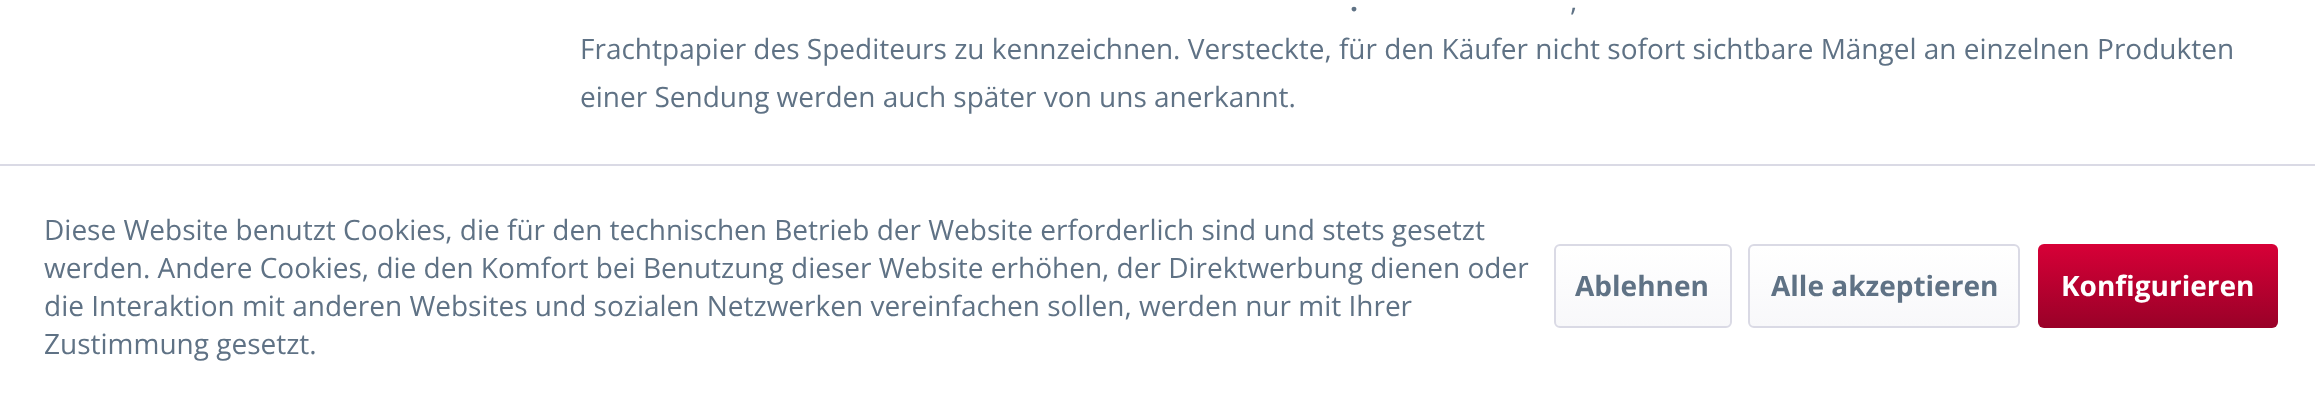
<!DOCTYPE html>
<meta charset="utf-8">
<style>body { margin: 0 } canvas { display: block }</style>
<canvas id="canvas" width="2315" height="405"></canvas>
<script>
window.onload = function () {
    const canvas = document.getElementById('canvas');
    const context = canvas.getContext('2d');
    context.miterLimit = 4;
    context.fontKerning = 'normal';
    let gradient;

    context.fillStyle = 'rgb(255, 255, 255)';
    context.fillRect(0, 0, 2315, 405);
    context.fillStyle = 'rgb(218, 218, 229)';
    context.fillRect(0, 164, 2315, 2);
    gradient = context.createLinearGradient(1643, 246, 1643, 326);
    gradient.addColorStop(0, 'rgb(255, 255, 255)');
    gradient.addColorStop(1, 'rgb(248, 248, 250)');
    context.fillStyle = gradient;
    context.beginPath();
    context.roundRect(1556, 246, 174, 80, 4);
    context.fill();
    context.beginPath();
    context.roundRect(1555, 245, 176, 82, 5);
    context.strokeStyle = 'rgb(218, 218, 229)';
    context.lineWidth = 2;
    context.stroke();
    gradient = context.createLinearGradient(1884, 246, 1884, 326);
    gradient.addColorStop(0, 'rgb(255, 255, 255)');
    gradient.addColorStop(1, 'rgb(248, 248, 250)');
    context.fillStyle = gradient;
    context.beginPath();
    context.roundRect(1750, 246, 268, 80, 4);
    context.fill();
    context.beginPath();
    context.roundRect(1749, 245, 270, 82, 5);
    context.stroke();
    gradient = context.createLinearGradient(2158, 244, 2158, 328);
    gradient.addColorStop(0, 'rgb(215, 0, 55)');
    gradient.addColorStop(1, 'rgb(153, 1, 40)');
    context.fillStyle = gradient;
    context.beginPath();
    context.roundRect(2038, 244, 240, 84, 6);
    context.fill();
    context.font = 'bold 28px Open Sans';
    context.fillStyle = 'rgb(95, 114, 133)';
    context.fillText('.', 1350, 11);
    context.font = '28px Open Sans';
    context.fillText(',', 1570, 11);
    context.fillText('Frachtpapier des Spediteurs zu kennzeichnen. Versteckte, für den Käufer nicht sofort sichtbare Mängel an einzelnen Produkten', 580, 59);
    context.fillText('einer Sendung werden auch später von uns anerkannt.', 580, 107);
    context.fillText('Diese Website benutzt Cookies, die für den technischen Betrieb der Website erforderlich sind und stets gesetzt', 44, 240);
    context.fillText('werden. Andere Cookies, die den Komfort bei Benutzung dieser Website erhöhen, der Direktwerbung dienen oder', 44, 278);
    context.fillText('die Interaktion mit anderen Websites und sozialen Netzwerken vereinfachen sollen, werden nur mit Ihrer', 44, 316);
    context.fillText('Zustimmung gesetzt.', 44, 354);
    context.font = 'bold 28px Open Sans';
    context.fillText('Ablehnen', 1575, 296);
    context.fillText('Alle akzeptieren', 1771, 296);
    context.fillStyle = 'rgb(255, 255, 255)';
    context.fillText('Konfigurieren', 2061, 296);
};
</script>
